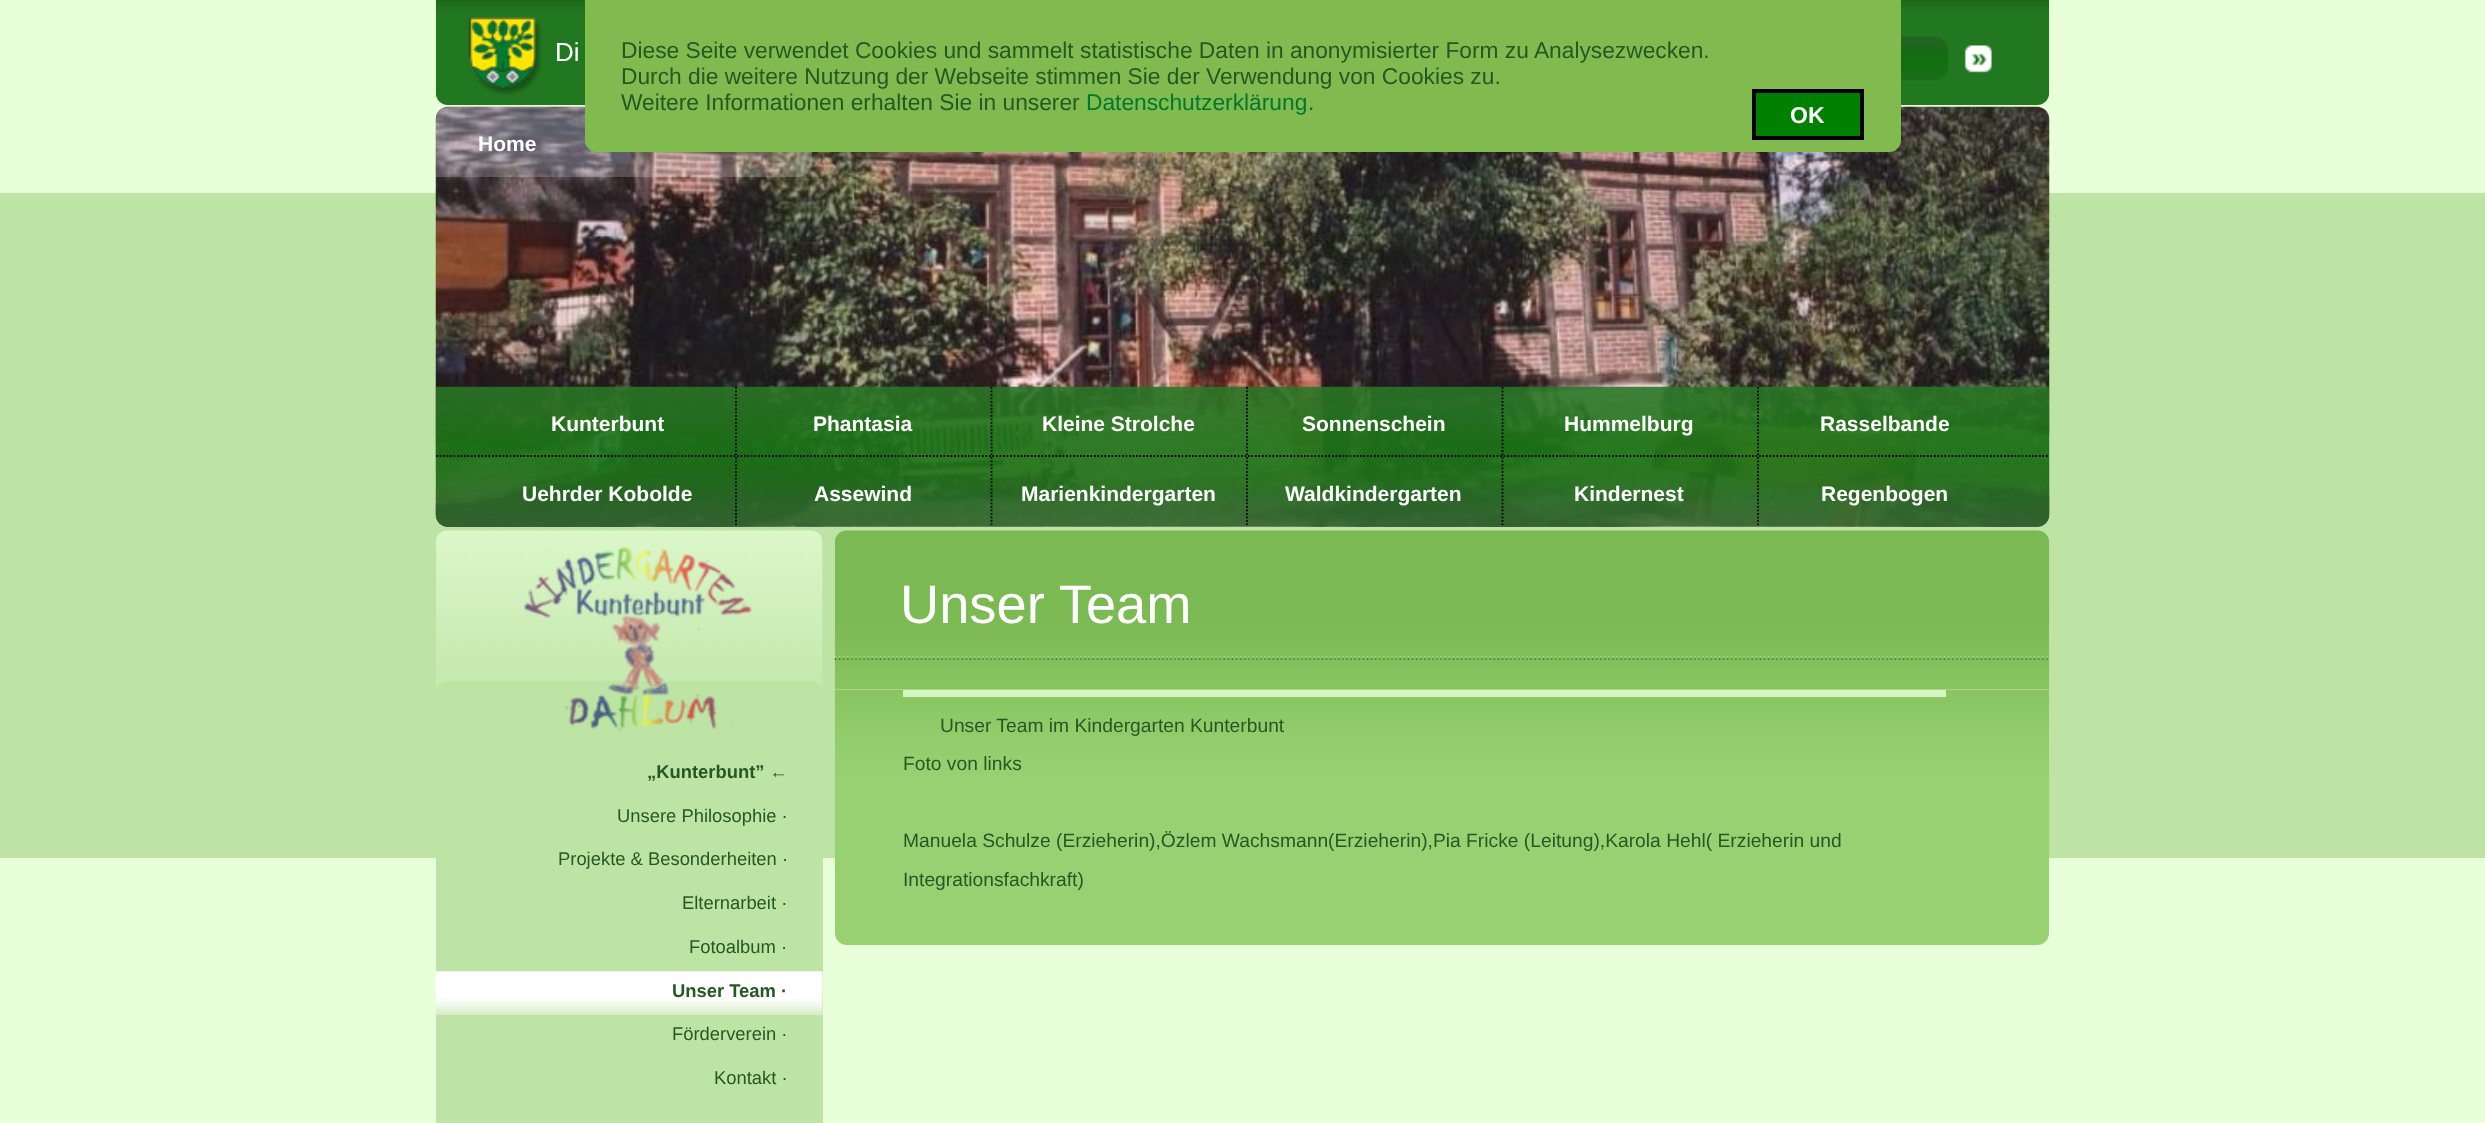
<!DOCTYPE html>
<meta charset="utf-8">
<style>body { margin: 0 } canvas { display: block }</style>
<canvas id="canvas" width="2485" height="1123"></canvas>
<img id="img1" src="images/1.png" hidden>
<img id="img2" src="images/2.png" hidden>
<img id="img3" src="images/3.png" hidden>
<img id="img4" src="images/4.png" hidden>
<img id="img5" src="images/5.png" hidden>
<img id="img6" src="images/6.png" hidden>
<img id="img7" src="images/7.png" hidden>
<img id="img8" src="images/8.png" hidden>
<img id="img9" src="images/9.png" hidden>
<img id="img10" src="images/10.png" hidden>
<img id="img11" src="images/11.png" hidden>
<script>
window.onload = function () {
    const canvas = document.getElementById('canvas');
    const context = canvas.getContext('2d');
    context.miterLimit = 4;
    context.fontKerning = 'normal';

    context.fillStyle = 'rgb(232, 255, 217)';
    context.fillRect(0, 0, 2485, 1123);
    context.drawImage(document.getElementById('img1'), 435, 0, 1615, 105);
    context.drawImage(document.getElementById('img2'), 468, 17, 74, 78);
    context.drawImage(document.getElementById('img3'), 1901, 36, 91, 45);
    context.fillStyle = 'rgb(190, 228, 165)';
    context.fillRect(0, 193, 2485, 665);
    context.drawImage(document.getElementById('img4'), 435, 106, 1615, 421);
    context.fillStyle = 'rgba(255, 255, 255, 0.2)';
    context.beginPath();
    context.roundRect(436, 107, 376, 70, [12, 0, 14, 0]);
    context.fill();
    context.fillStyle = 'rgb(129, 187, 79)';
    context.beginPath();
    context.roundRect(586, 1, 1314, 150, [0, 0, 11, 11]);
    context.fill();
    context.strokeStyle = 'rgb(129, 187, 80)';
    context.lineWidth = 2;
    context.stroke();
    context.fillStyle = 'rgb(0, 128, 0)';
    context.beginPath();
    context.rect(1754, 91, 108, 47);
    context.fill();
    context.strokeStyle = 'rgb(0, 0, 0)';
    context.lineWidth = 4;
    context.stroke();
    context.drawImage(document.getElementById('img5'), 435, 386, 1615, 141);
    context.beginPath();
    context.moveTo(436, 456);
    context.lineTo(2049, 456);
    context.strokeStyle = 'rgb(1, 0, 0)';
    context.lineWidth = 1.8;
    context.setLineDash([1.75, 1.75]);
    context.stroke();
    context.beginPath();
    context.moveTo(736, 387);
    context.lineTo(736, 455);
    context.stroke();
    context.beginPath();
    context.moveTo(991.5, 387);
    context.lineTo(991.5, 455);
    context.stroke();
    context.beginPath();
    context.moveTo(1247, 387);
    context.lineTo(1247, 455);
    context.stroke();
    context.beginPath();
    context.moveTo(1502.5, 387);
    context.lineTo(1502.5, 455);
    context.stroke();
    context.beginPath();
    context.moveTo(1758, 387);
    context.lineTo(1758, 455);
    context.stroke();
    context.beginPath();
    context.moveTo(736, 457);
    context.lineTo(736, 525);
    context.stroke();
    context.beginPath();
    context.moveTo(991.5, 457);
    context.lineTo(991.5, 525);
    context.stroke();
    context.beginPath();
    context.moveTo(1247, 457);
    context.lineTo(1247, 525);
    context.stroke();
    context.beginPath();
    context.moveTo(1502.5, 457);
    context.lineTo(1502.5, 525);
    context.stroke();
    context.beginPath();
    context.moveTo(1758, 457);
    context.lineTo(1758, 525);
    context.stroke();
    context.drawImage(document.getElementById('img6'), 834, 530, 1216, 160);
    context.drawImage(document.getElementById('img7'), 834, 656, 1214, 4);
    context.drawImage(document.getElementById('img8'), 436, 530, 387, 163);
    context.fillStyle = 'rgb(190, 228, 165)';
    context.beginPath();
    context.roundRect(436, 681, 387, 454, 12);
    context.fill();
    context.drawImage(document.getElementById('img9'), 523, 547, 230, 185);
    context.drawImage(document.getElementById('img10'), 435, 971, 388, 44);
    context.fillStyle = 'rgb(152, 209, 114)';
    context.beginPath();
    context.roundRect(835, 690, 1214, 255, [0, 0, 12, 12]);
    context.fill();
    context.drawImage(document.getElementById('img11'), 834, 689, 1216, 177);
    context.fillStyle = 'rgb(213, 245, 195)';
    context.fillRect(903, 690, 1043, 7);
    context.font = '26px Liberation Sans';
    context.fillStyle = 'rgb(255, 255, 255)';
    context.fillText('Di', 555, 61);
    context.font = '22.75px Liberation Sans';
    context.fillStyle = 'rgb(37, 88, 35)';
    context.fillText('Diese Seite verwendet Cookies und sammelt statistische Daten in anonymisierter Form zu Analysezwecken.', 621, 58);
    context.fillText('Durch die weitere Nutzung der Webseite stimmen Sie der Verwendung von Cookies zu.', 621, 84);
    context.fillText('Weitere Informationen erhalten Sie in unserer', 621, 110);
    context.fillStyle = 'rgb(0, 120, 45)';
    context.fillText('Datenschutzerklärung', 1086, 110);
    context.fillStyle = 'rgb(37, 88, 35)';
    context.fillText('.', 1308, 110);
    context.font = 'bold 23px Liberation Sans';
    context.fillStyle = 'rgb(255, 255, 255)';
    context.fillText('OK', 1790, 123);
    context.font = 'bold 21px Liberation Sans';
    context.fillText('Home', 478, 151);
    context.fillText('Kunterbunt', 551, 431);
    context.fillText('Phantasia', 813, 431);
    context.fillText('Kleine Strolche', 1042, 431);
    context.fillText('Sonnenschein', 1302, 431);
    context.fillText('Hummelburg', 1564, 431);
    context.fillText('Rasselbande', 1820, 431);
    context.fillText('Uehrder Kobolde', 522, 501);
    context.fillText('Assewind', 814, 501);
    context.fillText('Marienkindergarten', 1021, 501);
    context.fillText('Waldkindergarten', 1285, 501);
    context.fillText('Kindernest', 1574, 501);
    context.fillText('Regenbogen', 1821, 501);
    context.font = '54.25px Liberation Sans';
    context.fillText('Unser Team', 900, 623);
    context.font = 'bold 18.4px Liberation Sans';
    context.fillStyle = 'rgb(37, 88, 35)';
    context.fillText('„Kunterbunt” ←', 647, 778);
    context.font = '18.4px Liberation Sans';
    context.fillText('Unsere Philosophie ·', 617, 822);
    context.fillText('Projekte & Besonderheiten ·', 558, 865);
    context.fillText('Elternarbeit ·', 682, 909);
    context.fillText('Fotoalbum ·', 689, 953);
    context.font = 'bold 18.4px Liberation Sans';
    context.fillText('Unser Team ·', 672, 997);
    context.font = '18.4px Liberation Sans';
    context.fillText('Förderverein ·', 672, 1040);
    context.fillText('Kontakt ·', 714, 1084);
    context.font = '19.25px Liberation Sans';
    context.fillText('Unser Team im Kindergarten Kunterbunt', 940, 732);
    context.fillText('Foto von links', 903, 770);
    context.fillText('Manuela Schulze (Erzieherin),Özlem Wachsmann(Erzieherin),Pia Fricke (Leitung),Karola Hehl( Erzieherin und', 903, 847);
    context.fillText('Integrationsfachkraft)', 903, 886);
};
</script>
